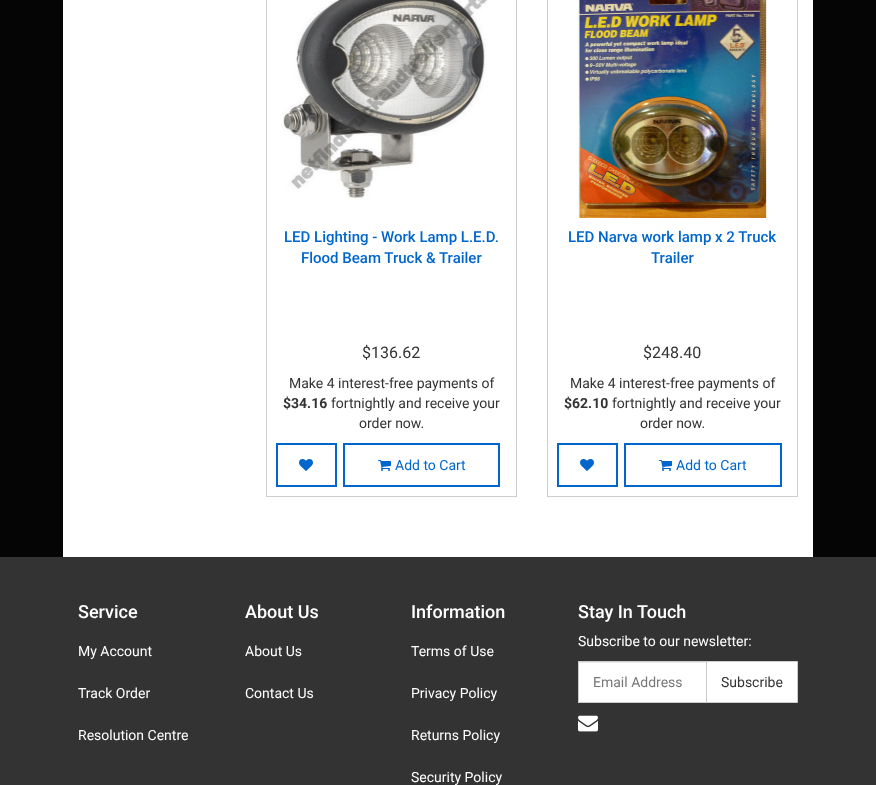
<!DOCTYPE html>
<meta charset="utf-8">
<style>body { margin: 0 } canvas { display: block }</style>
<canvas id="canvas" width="876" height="785"></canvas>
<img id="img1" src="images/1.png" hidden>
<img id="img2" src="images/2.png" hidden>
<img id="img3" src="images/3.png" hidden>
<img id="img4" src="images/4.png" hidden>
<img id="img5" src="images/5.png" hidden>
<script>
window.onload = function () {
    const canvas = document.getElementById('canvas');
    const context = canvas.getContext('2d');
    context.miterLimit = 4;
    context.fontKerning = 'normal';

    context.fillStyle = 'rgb(5, 5, 5)';
    context.fillRect(0, 0, 876, 785);
    context.fillStyle = 'rgb(255, 255, 255)';
    context.fillRect(63, 0, 750, 557);
    context.strokeStyle = 'rgb(206, 206, 206)';
    context.strokeRect(266.5, -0.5, 250, 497);
    context.drawImage(document.getElementById('img1'), 282, 0, 206, 199);
    context.strokeStyle = 'rgb(0, 102, 204)';
    context.lineWidth = 2;
    context.strokeRect(277, 444, 59, 42);
    context.drawImage(document.getElementById('img2'), 299, 459, 14, 12);
    context.strokeRect(344, 444, 155, 42);
    context.drawImage(document.getElementById('img3'), 378, 460, 13, 11);
    context.strokeStyle = 'rgb(206, 206, 206)';
    context.lineWidth = 1;
    context.strokeRect(547.5, -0.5, 250, 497);
    context.drawImage(document.getElementById('img4'), 577, 0, 190, 218);
    context.strokeStyle = 'rgb(0, 102, 204)';
    context.lineWidth = 2;
    context.strokeRect(558, 444, 59, 42);
    context.drawImage(document.getElementById('img2'), 580, 459, 14, 12);
    context.strokeRect(625, 444, 156, 42);
    context.drawImage(document.getElementById('img3'), 659, 460, 13, 11);
    context.fillStyle = 'rgb(51, 51, 51)';
    context.fillRect(0, 557, 876, 228);
    context.fillStyle = 'rgb(255, 255, 255)';
    context.fillRect(579, 663, 127, 39);
    context.fillStyle = 'rgb(236, 236, 236)';
    context.fillRect(579, 662, 127, 1);
    context.fillStyle = 'rgb(255, 255, 255)';
    context.beginPath();
    context.rect(706.5, 661.5, 91, 41);
    context.fill();
    context.strokeStyle = 'rgb(204, 204, 204)';
    context.lineWidth = 1;
    context.stroke();
    context.strokeRect(578.5, 661.5, 128, 41);
    context.drawImage(document.getElementById('img5'), 578, 715, 20, 17);
    context.font = '500 15px Roboto';
    context.fillStyle = 'rgb(0, 102, 204)';
    context.fillText('LED Lighting - Work Lamp L.E.D.', 284, 242);
    context.fillText('Flood Beam Truck & Trailer', 301, 263);
    context.font = '16px Roboto';
    context.fillStyle = 'rgb(51, 51, 51)';
    context.fillText('$136.62', 362, 358);
    context.font = '14px Roboto';
    context.fillText('Make 4 interest-free payments of', 289, 388);
    context.font = 'bold 14px Roboto';
    context.fillText('$34.16', 283, 408);
    context.font = '14px Roboto';
    context.fillText('fortnightly and receive your', 331, 408);
    context.fillText('order now.', 359, 428);
    context.fillStyle = 'rgb(0, 102, 204)';
    context.fillText('Add to Cart', 395, 470);
    context.font = '500 15px Roboto';
    context.fillText('LED Narva work lamp x 2 Truck', 568, 242);
    context.fillText('Trailer', 651, 263);
    context.font = '16px Roboto';
    context.fillStyle = 'rgb(51, 51, 51)';
    context.fillText('$248.40', 643, 358);
    context.font = '14px Roboto';
    context.fillText('Make 4 interest-free payments of', 570, 388);
    context.font = 'bold 14px Roboto';
    context.fillText('$62.10', 564, 408);
    context.font = '14px Roboto';
    context.fillText('fortnightly and receive your', 612, 408);
    context.fillText('order now.', 640, 428);
    context.fillStyle = 'rgb(0, 102, 204)';
    context.fillText('Add to Cart', 676, 470);
    context.font = '500 18px Roboto';
    context.fillStyle = 'rgb(255, 255, 255)';
    context.fillText('Service', 78, 618);
    context.font = '14px Roboto';
    context.fillText('My Account', 78, 656);
    context.fillText('Track Order', 78, 698);
    context.fillText('Resolution Centre', 78, 740);
    context.font = '500 18px Roboto';
    context.fillText('About Us', 245, 618);
    context.font = '14px Roboto';
    context.fillText('About Us', 245, 656);
    context.fillText('Contact Us', 245, 698);
    context.font = '500 18px Roboto';
    context.fillText('Information', 411, 618);
    context.font = '14px Roboto';
    context.fillText('Terms of Use', 411, 656);
    context.fillText('Privacy Policy', 411, 698);
    context.fillText('Returns Policy', 411, 740);
    context.fillText('Security Policy', 411, 782);
    context.font = '500 18px Roboto';
    context.fillText('Stay In Touch', 578, 618);
    context.font = '14px Roboto';
    context.fillText('Subscribe to our newsletter:', 578, 646);
    context.fillStyle = 'rgb(119, 119, 119)';
    context.fillText('Email Address', 593, 687);
    context.fillStyle = 'rgb(51, 51, 51)';
    context.fillText('Subscribe', 721, 687);
};
</script>
